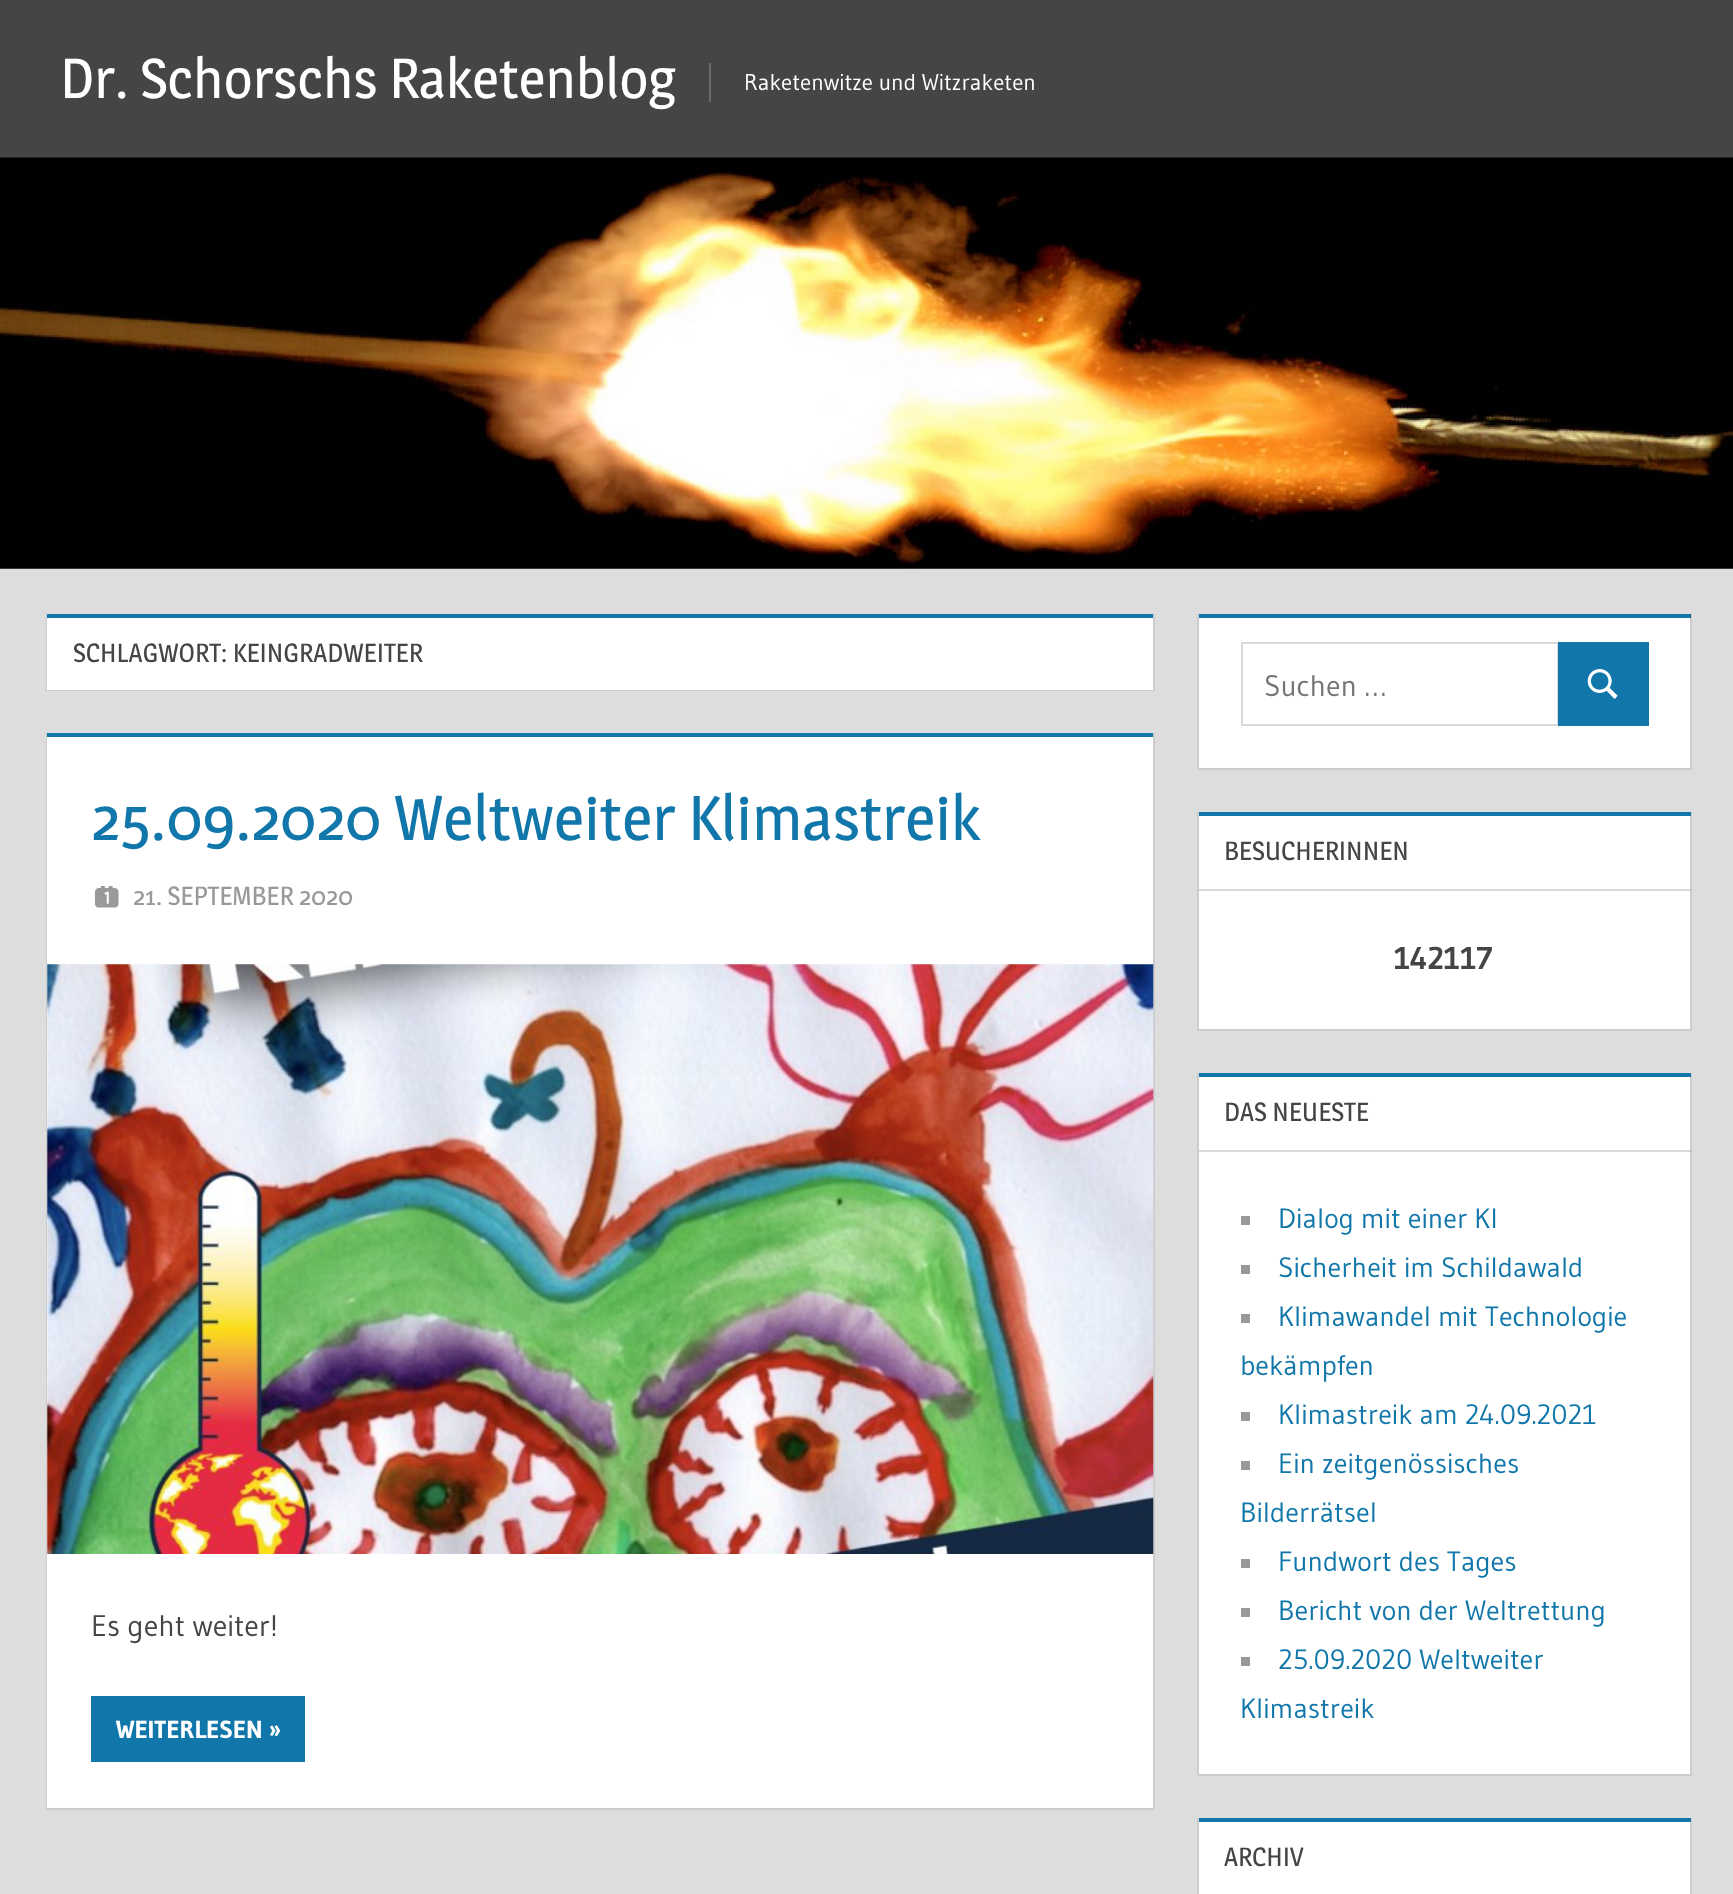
<!DOCTYPE html>
<meta charset="utf-8">
<style>body { margin: 0 } canvas { display: block }</style>
<canvas id="canvas" width="1733" height="1894"></canvas>
<img id="img1" src="images/1.png" hidden>
<img id="img2" src="images/2.png" hidden>
<img id="img3" src="images/3.png" hidden>
<img id="img4" src="images/4.png" hidden>
<script>
window.onload = function () {
    const canvas = document.getElementById('canvas');
    const context = canvas.getContext('2d');
    context.miterLimit = 4;
    context.fontKerning = 'normal';

    context.fillStyle = 'rgb(221, 221, 221)';
    context.fillRect(0, 0, 1733, 1894);
    context.fillStyle = 'rgb(69, 69, 69)';
    context.fillRect(0, 0, 1733, 158);
    context.fillStyle = 'rgb(106, 106, 106)';
    context.fillRect(709, 63, 2, 39);
    context.drawImage(document.getElementById('img1'), 0, 157, 1733, 412);
    context.fillStyle = 'rgb(255, 255, 255)';
    context.fillRect(46, 614, 1109, 77);
    context.fillStyle = 'rgb(204, 204, 204)';
    context.beginPath();
    context.moveTo(1155, 614);
    context.lineTo(1155, 691);
    context.lineTo(1153, 690);
    context.lineTo(1153, 614);
    context.closePath();
    context.fill();
    context.fillStyle = 'rgba(0, 0, 0, 0.2)';
    context.beginPath();
    context.moveTo(1155, 691);
    context.lineTo(46, 691);
    context.lineTo(47, 690);
    context.lineTo(1153, 690);
    context.closePath();
    context.fill();
    context.beginPath();
    context.moveTo(46, 691);
    context.lineTo(46, 614);
    context.lineTo(47, 614);
    context.lineTo(47, 690);
    context.closePath();
    context.fill();
    context.fillStyle = 'rgb(17, 119, 170)';
    context.fillRect(47, 614, 1106, 4);
    context.fillStyle = 'rgb(255, 255, 255)';
    context.fillRect(46, 733, 1109, 1077);
    context.fillStyle = 'rgb(17, 119, 170)';
    context.fillRect(47, 733, 1106, 4);
    context.fillStyle = 'rgb(204, 204, 204)';
    context.beginPath();
    context.moveTo(1155, 733);
    context.lineTo(1155, 1810);
    context.lineTo(1153, 1808);
    context.lineTo(1153, 733);
    context.closePath();
    context.fill();
    context.fillStyle = 'rgba(0, 0, 0, 0.2)';
    context.beginPath();
    context.moveTo(1155, 1810);
    context.lineTo(46, 1810);
    context.lineTo(47, 1808);
    context.lineTo(1153, 1808);
    context.closePath();
    context.fill();
    context.beginPath();
    context.moveTo(46, 1810);
    context.lineTo(46, 733);
    context.lineTo(47, 733);
    context.lineTo(47, 1808);
    context.closePath();
    context.fill();
    context.drawImage(document.getElementById('img2'), 94, 886, 25, 22);
    context.drawImage(document.getElementById('img3'), 47, 964, 1107, 590);
    context.fillStyle = 'rgb(17, 119, 170)';
    context.fillRect(91, 1696, 214, 66);
    context.fillStyle = 'rgb(255, 255, 255)';
    context.fillRect(1197, 614, 495, 156);
    context.fillStyle = 'rgb(17, 119, 170)';
    context.fillRect(1199, 614, 492, 4);
    context.fillStyle = 'rgba(0, 0, 0, 0.2)';
    context.beginPath();
    context.moveTo(1692, 614);
    context.lineTo(1692, 770);
    context.lineTo(1690, 768);
    context.lineTo(1690, 614);
    context.closePath();
    context.fill();
    context.beginPath();
    context.moveTo(1692, 770);
    context.lineTo(1197, 770);
    context.lineTo(1199, 768);
    context.lineTo(1690, 768);
    context.closePath();
    context.fill();
    context.beginPath();
    context.moveTo(1197, 770);
    context.lineTo(1197, 614);
    context.lineTo(1199, 614);
    context.lineTo(1199, 768);
    context.closePath();
    context.fill();
    context.strokeStyle = 'rgb(217, 217, 217)';
    context.lineWidth = 2;
    context.strokeRect(1242, 643, 316, 82);
    context.fillStyle = 'rgb(17, 119, 170)';
    context.fillRect(1558, 642, 91, 84);
    context.drawImage(document.getElementById('img4'), 1587, 669, 31, 30);
    context.fillStyle = 'rgb(255, 255, 255)';
    context.fillRect(1197, 812, 495, 219);
    context.fillStyle = 'rgba(0, 0, 0, 0.2)';
    context.beginPath();
    context.moveTo(1692, 812);
    context.lineTo(1692, 1031);
    context.lineTo(1690, 1029);
    context.lineTo(1690, 812);
    context.closePath();
    context.fill();
    context.beginPath();
    context.moveTo(1692, 1031);
    context.lineTo(1197, 1031);
    context.lineTo(1199, 1029);
    context.lineTo(1690, 1029);
    context.closePath();
    context.fill();
    context.beginPath();
    context.moveTo(1197, 1031);
    context.lineTo(1197, 812);
    context.lineTo(1199, 812);
    context.lineTo(1199, 1029);
    context.closePath();
    context.fill();
    context.fillStyle = 'rgb(17, 119, 170)';
    context.fillRect(1199, 812, 492, 4);
    context.fillStyle = 'rgba(0, 0, 0, 0.15)';
    context.fillRect(1199, 889, 492, 2);
    context.fillStyle = 'rgb(255, 255, 255)';
    context.fillRect(1197, 1073, 495, 703);
    context.fillStyle = 'rgba(0, 0, 0, 0.2)';
    context.beginPath();
    context.moveTo(1692, 1073);
    context.lineTo(1692, 1776);
    context.lineTo(1690, 1774);
    context.lineTo(1690, 1073);
    context.closePath();
    context.fill();
    context.beginPath();
    context.moveTo(1692, 1776);
    context.lineTo(1197, 1776);
    context.lineTo(1199, 1774);
    context.lineTo(1690, 1774);
    context.closePath();
    context.fill();
    context.beginPath();
    context.moveTo(1197, 1776);
    context.lineTo(1197, 1073);
    context.lineTo(1199, 1073);
    context.lineTo(1199, 1774);
    context.closePath();
    context.fill();
    context.fillStyle = 'rgb(17, 119, 170)';
    context.fillRect(1199, 1073, 492, 4);
    context.fillStyle = 'rgba(0, 0, 0, 0.15)';
    context.fillRect(1199, 1150, 492, 2);
    context.fillStyle = 'rgb(153, 153, 153)';
    context.fillRect(1241, 1216, 9, 9);
    context.fillRect(1241, 1265, 9, 9);
    context.fillRect(1241, 1314, 9, 9);
    context.fillRect(1241, 1412, 9, 9);
    context.fillRect(1241, 1461, 9, 9);
    context.fillRect(1241, 1559, 9, 9);
    context.fillRect(1241, 1608, 9, 9);
    context.fillRect(1241, 1657, 9, 9);
    context.fillStyle = 'rgb(255, 255, 255)';
    context.fillRect(1199, 1818, 493, 76);
    context.fillStyle = 'rgba(0, 0, 0, 0.2)';
    context.beginPath();
    context.moveTo(1692, 1818);
    context.lineTo(1692, 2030);
    context.lineTo(1690, 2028);
    context.lineTo(1690, 1818);
    context.closePath();
    context.fill();
    context.fillStyle = 'rgb(204, 204, 204)';
    context.beginPath();
    context.moveTo(1197, 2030);
    context.lineTo(1197, 1818);
    context.lineTo(1199, 1818);
    context.lineTo(1199, 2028);
    context.closePath();
    context.fill();
    context.fillStyle = 'rgb(17, 119, 170)';
    context.fillRect(1199, 1818, 492, 4);
    context.font = '56px Magra';
    context.fillStyle = 'rgb(255, 255, 255)';
    context.fillText('Dr. Schorschs Raketenblog', 60, 98);
    context.font = '22.75px Gudea';
    context.fillText('Raketenwitze und Witzraketen', 744, 90);
    context.font = '26.25px Magra';
    context.fillStyle = 'rgb(69, 69, 69)';
    context.fillText('SCHLAGWORT: KEINGRADWEITER', 73, 662);
    context.font = '63px Magra';
    context.fillStyle = 'rgb(17, 119, 170)';
    context.fillText('25.09.2020 Weltweiter Klimastreik', 91, 840);
    context.font = '26.25px Magra';
    context.fillStyle = 'rgb(153, 153, 153)';
    context.fillText('21. SEPTEMBER 2020', 133, 905);
    context.font = '29.75px Gudea';
    context.fillStyle = 'rgb(69, 69, 69)';
    context.fillText('Es geht weiter!', 91, 1636);
    context.font = 'bold 24.5px Gudea';
    context.fillStyle = 'rgb(255, 255, 255)';
    context.fillText('WEITERLESEN »', 116, 1738);
    context.font = '29.75px Gudea';
    context.fillStyle = 'rgb(117, 117, 117)';
    context.fillText('Suchen …', 1264, 696);
    context.font = '26.25px Magra';
    context.fillStyle = 'rgb(69, 69, 69)';
    context.fillText('BESUCHERINNEN', 1224, 860);
    context.font = 'bold 31.5px Gudea';
    context.fillText('142117', 1394, 969);
    context.font = '26.25px Magra';
    context.fillText('DAS NEUESTE', 1224, 1121);
    context.font = '28px Gudea';
    context.fillStyle = 'rgb(17, 119, 170)';
    context.fillText('Dialog mit einer KI', 1278, 1228);
    context.fillText('Sicherheit im Schildawald', 1278, 1277);
    context.fillText('Klimawandel mit Technologie', 1278, 1326);
    context.fillText('bekämpfen', 1240, 1375);
    context.fillText('Klimastreik am 24.09.2021', 1278, 1424);
    context.fillText('Ein zeitgenössisches', 1278, 1473);
    context.fillText('Bilderrätsel', 1240, 1522);
    context.fillText('Fundwort des Tages', 1278, 1571);
    context.fillText('Bericht von der Weltrettung', 1278, 1620);
    context.fillText('25.09.2020 Weltweiter', 1278, 1669);
    context.fillText('Klimastreik', 1240, 1718);
    context.font = '26.25px Magra';
    context.fillStyle = 'rgb(69, 69, 69)';
    context.fillText('ARCHIV', 1224, 1866);
};
</script>
